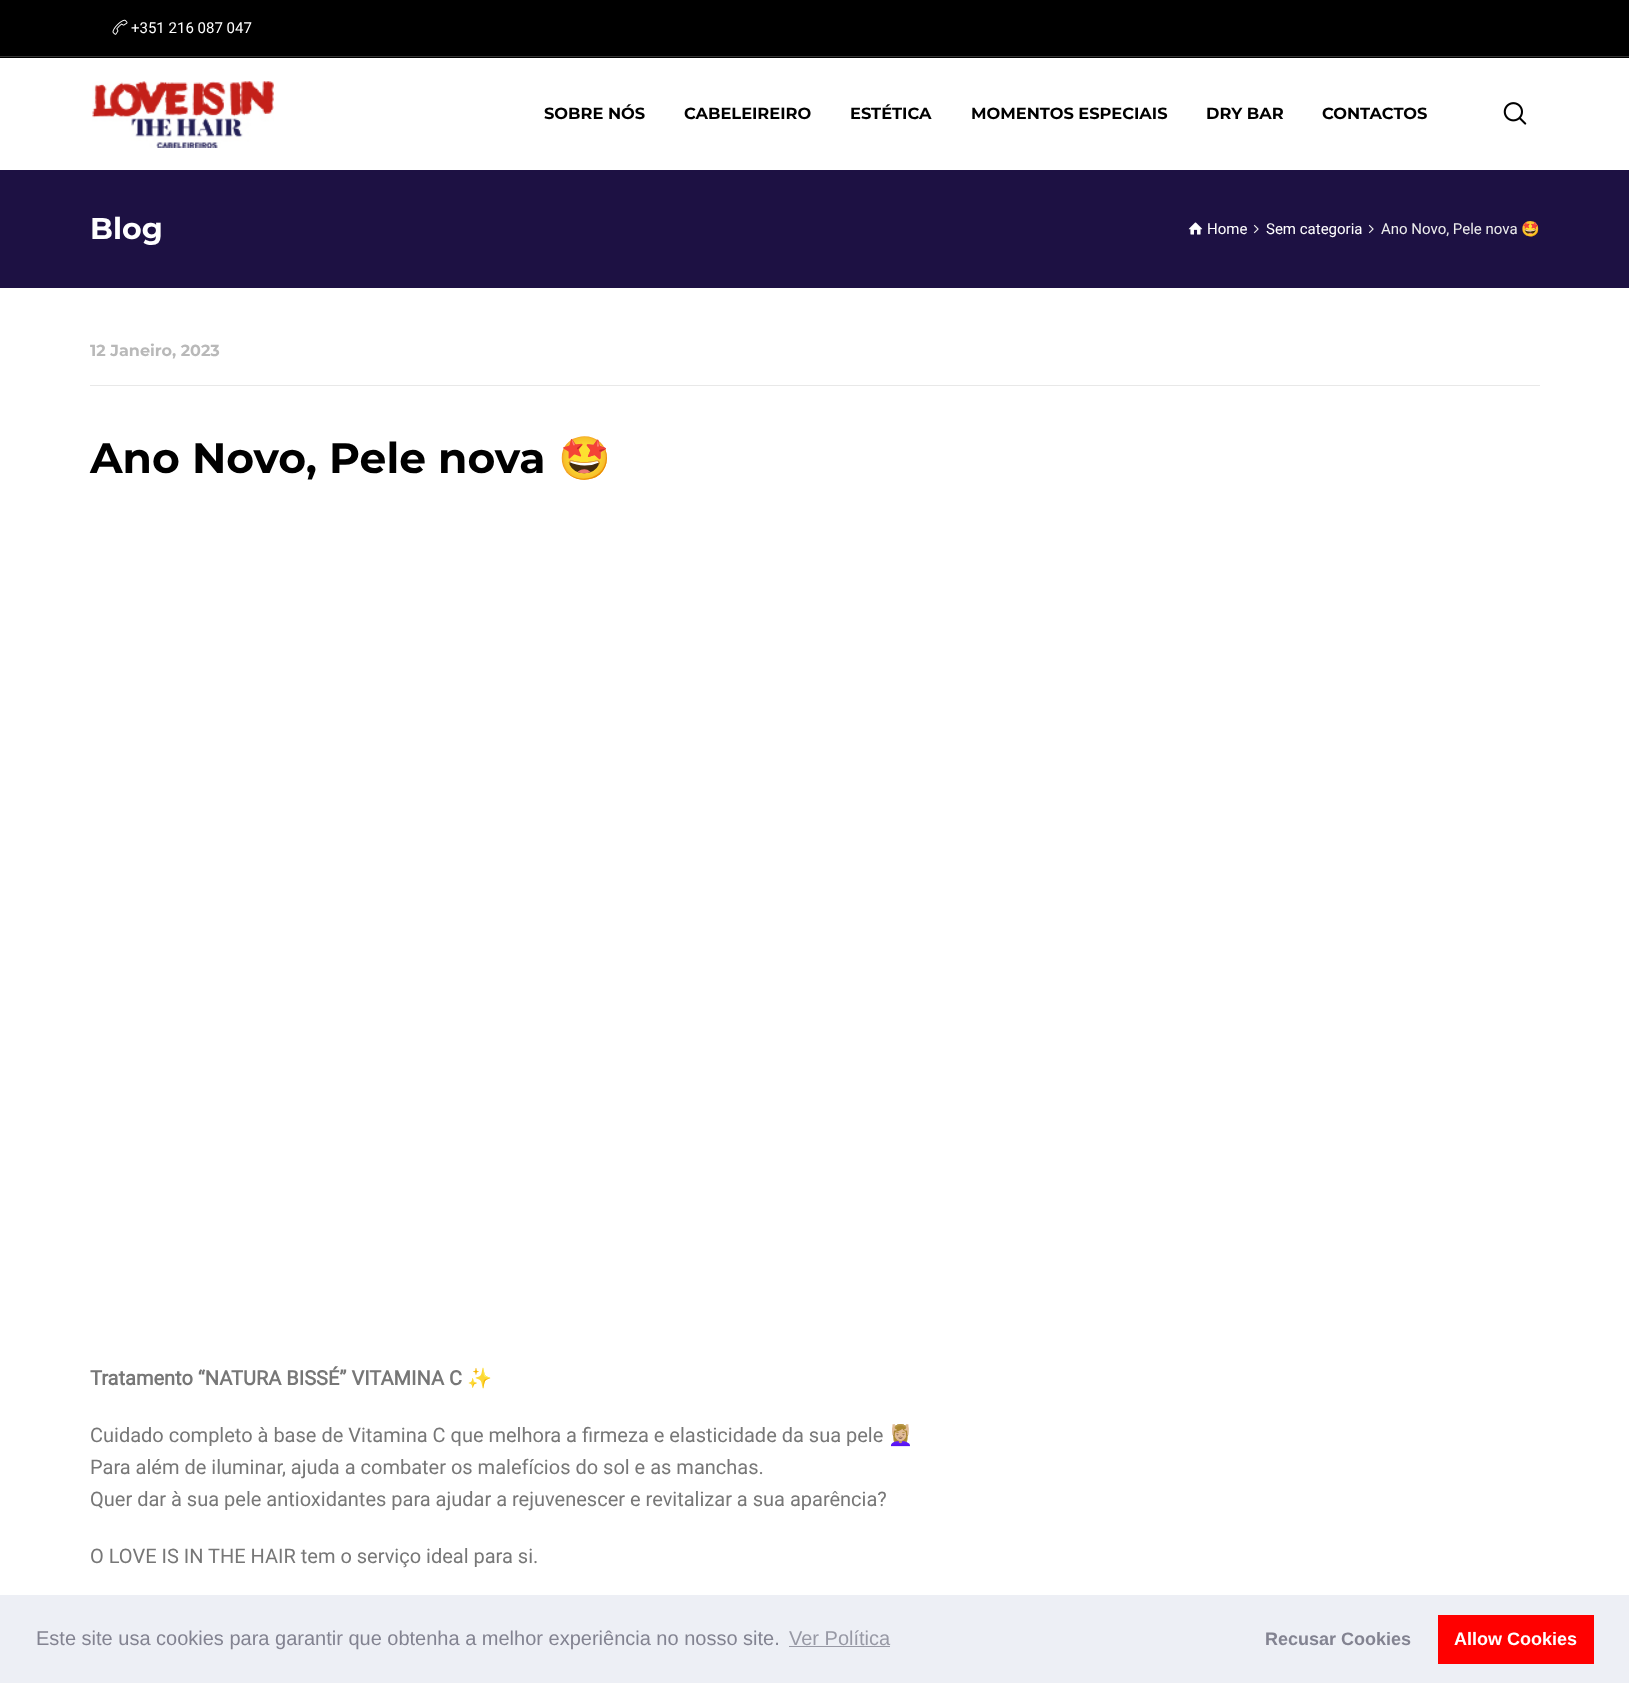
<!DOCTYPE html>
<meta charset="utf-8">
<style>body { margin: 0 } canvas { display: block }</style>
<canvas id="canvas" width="1629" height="1683"></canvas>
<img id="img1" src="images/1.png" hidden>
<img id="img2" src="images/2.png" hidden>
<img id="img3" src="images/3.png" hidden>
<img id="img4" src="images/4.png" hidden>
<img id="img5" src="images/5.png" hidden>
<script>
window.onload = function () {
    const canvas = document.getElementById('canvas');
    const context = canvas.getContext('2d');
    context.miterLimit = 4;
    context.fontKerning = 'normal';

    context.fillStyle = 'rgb(29, 17, 67)';
    context.fillRect(0, 0, 1629, 1683);
    context.fillStyle = 'rgb(0, 0, 0)';
    context.fillRect(0, 0, 1629, 58);
    context.fillStyle = 'rgb(51, 51, 51)';
    context.fillRect(0, 56, 1629, 1);
    context.drawImage(document.getElementById('img1'), 112, 19, 16, 16);
    context.fillStyle = 'rgb(255, 255, 255)';
    context.fillRect(0, 58, 1629, 112);
    context.drawImage(document.getElementById('img2'), 92, 81, 182, 67);
    context.drawImage(document.getElementById('img3'), 1503, 102, 24, 23);
    context.drawImage(document.getElementById('img4'), 1188, 222, 15, 13);
    context.drawImage(document.getElementById('img5'), 1253, 224, 6, 10);
    context.drawImage(document.getElementById('img5'), 1368, 224, 6, 10);
    context.fillRect(0, 288, 1629, 1307);
    context.fillStyle = 'rgb(232, 232, 232)';
    context.fillRect(90, 385, 1450, 1);
    context.fillStyle = 'rgb(237, 239, 245)';
    context.fillRect(0, 1595, 1629, 88);
    context.fillStyle = 'rgb(152, 153, 165)';
    context.fillRect(789, 1646, 101, 1);
    context.fillStyle = 'rgb(255, 0, 0)';
    context.fillRect(1438, 1615, 156, 49);
    context.font = '15px Roboto';
    context.fillStyle = 'rgb(255, 255, 255)';
    context.fillText('+351 216 087 047', 131, 33);
    context.font = '100 16.25px Montserrat';
    context.fillStyle = 'rgb(0, 0, 0)';
    context.fillText('SOBRE NÓS', 544, 119);
    context.fillText('CABELEIREIRO', 684, 119);
    context.fillText('ESTÉTICA', 850, 119);
    context.fillText('MOMENTOS ESPECIAIS', 971, 119);
    context.fillText('DRY BAR', 1206, 119);
    context.fillText('CONTACTOS', 1322, 119);
    context.font = '100 30px Montserrat';
    context.fillStyle = 'rgb(255, 255, 255)';
    context.fillText('Blog', 90, 239);
    context.font = '15px Roboto';
    context.fillText('Home', 1207, 234);
    context.fillText('Sem categoria', 1266, 234);
    context.fillStyle = 'rgb(237, 237, 237)';
    context.fillText('Ano Novo, Pele nova', 1381, 234);
    context.font = '15px Noto Color Emoji';
    context.fillText('🤩', 1521, 234);
    context.font = '100 16px Montserrat';
    context.fillStyle = 'rgb(185, 185, 185)';
    context.fillText('12 Janeiro, 2023', 90, 356);
    context.font = '100 42.5px Montserrat';
    context.fillStyle = 'rgb(0, 0, 0)';
    context.fillText('Ano Novo, Pele nova', 90, 473);
    context.font = 'bold 42.5px Noto Color Emoji';
    context.fillText('🤩', 558, 473);
    context.font = 'bold 20px Roboto';
    context.fillStyle = 'rgb(119, 119, 119)';
    context.fillText('Tratamento “NATURA BISSÉ” VITAMINA C', 90, 1385);
    context.font = 'bold 20px Noto Color Emoji';
    context.fillText('✨', 467, 1385);
    context.font = '20px Roboto';
    context.fillText('Cuidado completo à base de Vitamina C que melhora a firmeza e elasticidade da sua pele', 90, 1442);
    context.font = '20px Noto Color Emoji';
    context.fillText('💆🏼‍♀️', 888, 1442);
    context.font = '20px Roboto';
    context.fillText('Para além de iluminar, ajuda a combater os malefícios do sol e as manchas.', 90, 1474);
    context.fillText('Quer dar à sua pele antioxidantes para ajudar a rejuvenescer e revitalizar a sua aparência?', 90, 1506);
    context.fillText('O LOVE IS IN THE HAIR tem o serviço ideal para si.', 90, 1563);
    context.font = '20px Liberation Sans';
    context.fillStyle = 'rgb(131, 131, 145)';
    context.fillText('Este site usa cookies para garantir que obtenha a melhor experiência no nosso site.', 36, 1645);
    context.fillStyle = 'rgb(152, 153, 165)';
    context.fillText('Ver Política', 789, 1645);
    context.font = 'bold 18px Liberation Sans';
    context.fillStyle = 'rgb(131, 131, 145)';
    context.fillText('Recusar Cookies', 1265, 1645);
    context.fillStyle = 'rgb(255, 255, 255)';
    context.fillText('Allow Cookies', 1454, 1645);
};
</script>
